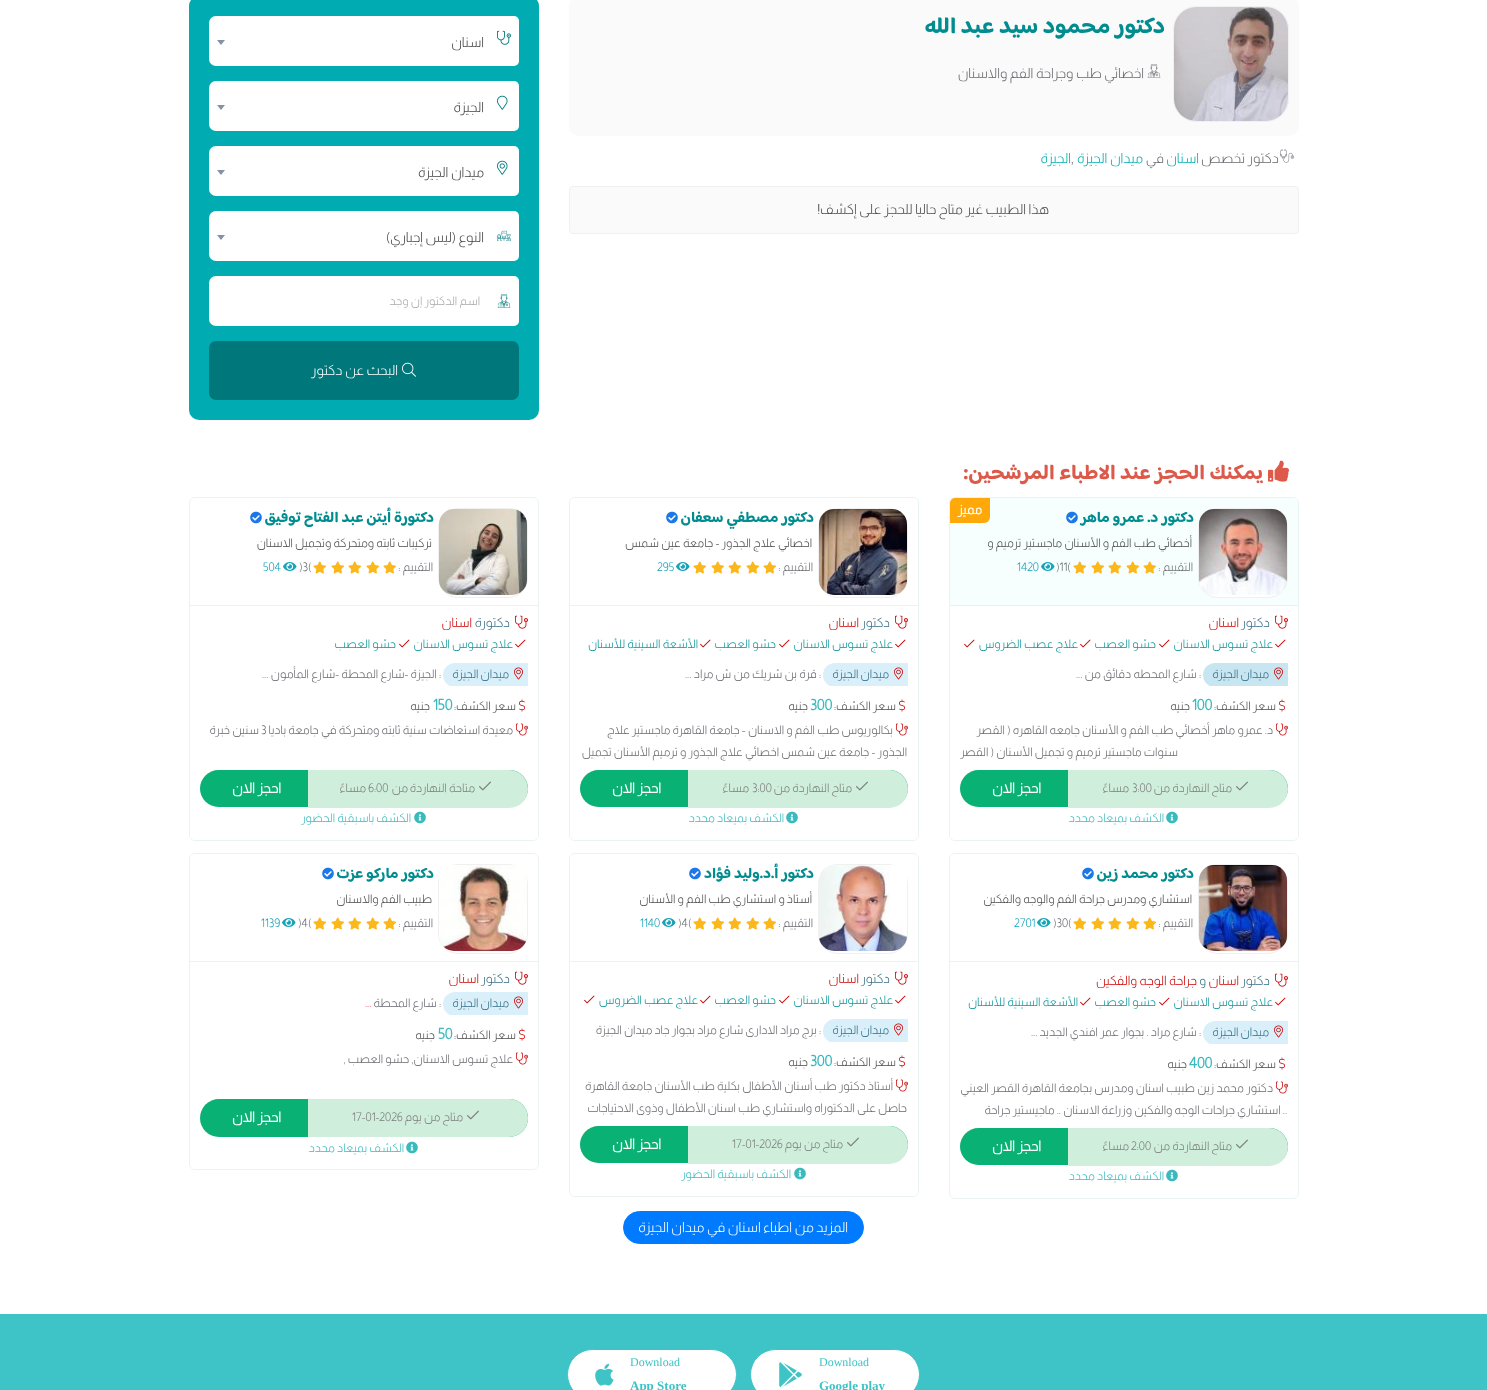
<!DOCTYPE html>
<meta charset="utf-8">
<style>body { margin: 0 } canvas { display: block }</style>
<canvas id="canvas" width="1487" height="1390"></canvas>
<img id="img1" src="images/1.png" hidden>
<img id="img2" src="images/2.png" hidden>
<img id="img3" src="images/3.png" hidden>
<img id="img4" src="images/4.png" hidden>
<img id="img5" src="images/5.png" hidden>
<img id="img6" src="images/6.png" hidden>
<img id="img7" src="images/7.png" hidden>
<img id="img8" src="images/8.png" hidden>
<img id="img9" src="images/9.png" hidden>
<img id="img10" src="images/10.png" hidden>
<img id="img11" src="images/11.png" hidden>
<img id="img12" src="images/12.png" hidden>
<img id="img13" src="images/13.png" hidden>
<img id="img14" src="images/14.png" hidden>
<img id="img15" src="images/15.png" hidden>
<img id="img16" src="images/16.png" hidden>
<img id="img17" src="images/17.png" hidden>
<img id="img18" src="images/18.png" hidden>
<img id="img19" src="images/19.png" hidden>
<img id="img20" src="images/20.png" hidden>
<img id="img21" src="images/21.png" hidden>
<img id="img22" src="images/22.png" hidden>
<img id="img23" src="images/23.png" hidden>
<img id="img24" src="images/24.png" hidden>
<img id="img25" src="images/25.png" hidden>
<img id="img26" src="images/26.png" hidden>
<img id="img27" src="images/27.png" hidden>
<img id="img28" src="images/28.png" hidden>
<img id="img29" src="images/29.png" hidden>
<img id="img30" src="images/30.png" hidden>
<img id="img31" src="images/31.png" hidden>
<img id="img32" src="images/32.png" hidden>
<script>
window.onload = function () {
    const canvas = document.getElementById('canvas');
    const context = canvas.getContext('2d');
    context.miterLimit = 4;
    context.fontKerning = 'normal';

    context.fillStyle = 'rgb(255, 255, 255)';
    context.fillRect(0, 0, 1487, 1390);
    context.fillStyle = 'rgb(250, 250, 250)';
    context.beginPath();
    context.roundRect(569, -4, 730, 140, 10);
    context.fill();
    context.beginPath();
    context.roundRect(1173.5, 6.5, 115, 115, 22.5);
    context.strokeStyle = 'rgb(240, 240, 240)';
    context.stroke();
    context.drawImage(document.getElementById('img1'), 1174, 7, 114, 114);
    context.drawImage(document.getElementById('img2'), 1147, 64, 14, 14);
    context.drawImage(document.getElementById('img3'), 1280, 149, 14, 14);
    context.beginPath();
    context.roundRect(569.5, 186.5, 729, 47, 3.5);
    context.fill();
    context.stroke();
    context.fillStyle = 'rgb(0, 172, 177)';
    context.beginPath();
    context.roundRect(189, -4, 350, 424, 10);
    context.fill();
    context.fillStyle = 'rgb(255, 255, 255)';
    context.beginPath();
    context.roundRect(494, 16, 25, 50, [0, 5, 5, 0]);
    context.fill();
    context.drawImage(document.getElementById('img4'), 497, 30, 14, 15);
    context.beginPath();
    context.roundRect(209, 16, 285, 50, [7, 0, 0, 7]);
    context.fill();
    context.fillStyle = 'rgb(132, 146, 166)';
    context.beginPath();
    context.moveTo(217, 40);
    context.lineTo(225, 40);
    context.lineTo(221, 45);
    context.closePath();
    context.fill();
    context.fillStyle = 'rgb(255, 255, 255)';
    context.beginPath();
    context.roundRect(494, 81, 25, 50, [0, 5, 5, 0]);
    context.fill();
    context.drawImage(document.getElementById('img5'), 497, 95, 11, 15);
    context.beginPath();
    context.roundRect(209, 81, 285, 50, [7, 0, 0, 7]);
    context.fill();
    context.fillStyle = 'rgb(132, 146, 166)';
    context.beginPath();
    context.moveTo(217, 105);
    context.lineTo(225, 105);
    context.lineTo(221, 110);
    context.closePath();
    context.fill();
    context.fillStyle = 'rgb(255, 255, 255)';
    context.beginPath();
    context.roundRect(494, 146, 25, 50, [0, 5, 5, 0]);
    context.fill();
    context.drawImage(document.getElementById('img6'), 497, 160, 11, 15);
    context.beginPath();
    context.roundRect(209, 146, 285, 50, [7, 0, 0, 7]);
    context.fill();
    context.fillStyle = 'rgb(132, 146, 166)';
    context.beginPath();
    context.moveTo(217, 170);
    context.lineTo(225, 170);
    context.lineTo(221, 175);
    context.closePath();
    context.fill();
    context.fillStyle = 'rgb(255, 255, 255)';
    context.beginPath();
    context.roundRect(494, 211, 25, 50, [0, 5, 5, 0]);
    context.fill();
    context.drawImage(document.getElementById('img7'), 497, 230, 14, 12);
    context.beginPath();
    context.roundRect(209, 211, 285, 50, [7, 0, 0, 7]);
    context.fill();
    context.fillStyle = 'rgb(132, 146, 166)';
    context.beginPath();
    context.moveTo(217, 235);
    context.lineTo(225, 235);
    context.lineTo(221, 240);
    context.closePath();
    context.fill();
    context.fillStyle = 'rgb(255, 255, 255)';
    context.beginPath();
    context.roundRect(494, 276, 25, 50, [0, 5, 5, 0]);
    context.fill();
    context.drawImage(document.getElementById('img8'), 497, 294, 14, 14);
    context.beginPath();
    context.roundRect(209, 276, 285, 50, [7, 0, 0, 7]);
    context.fill();
    context.fillStyle = 'rgb(0, 120, 123)';
    context.beginPath();
    context.roundRect(209, 341, 310, 59, 7);
    context.fill();
    context.drawImage(document.getElementById('img9'), 402, 362, 14, 15);
    context.drawImage(document.getElementById('img10'), 1268, 460, 21, 22);
    context.beginPath();
    context.roundRect(949.5, 497.5, 349, 343, 5.5);
    context.strokeStyle = 'rgb(235, 242, 243)';
    context.stroke();
    context.fillStyle = 'rgb(255, 255, 255)';
    context.beginPath();
    context.roundRect(950, 498, 348, 342, 5);
    context.fill();
    context.fillStyle = 'rgb(247, 254, 254)';
    context.beginPath();
    context.roundRect(950, 498, 348, 108, [5, 5, 0, 0]);
    context.fill();
    context.fillStyle = 'rgb(210, 250, 250)';
    context.fillRect(950, 605, 348, 1);
    context.fillStyle = 'rgb(255, 255, 255)';
    context.beginPath();
    context.roundRect(1198.5, 508.5, 89, 89, 19.5);
    context.fill();
    context.strokeStyle = 'rgb(240, 240, 240)';
    context.stroke();
    context.drawImage(document.getElementById('img11'), 1199, 509, 88, 86);
    context.drawImage(document.getElementById('img12'), 1066, 511, 12, 13);
    context.drawImage(document.getElementById('img13'), 1143, 561, 13, 13);
    context.drawImage(document.getElementById('img13'), 1126, 561, 13, 13);
    context.drawImage(document.getElementById('img13'), 1108, 561, 13, 13);
    context.drawImage(document.getElementById('img13'), 1091, 561, 13, 13);
    context.drawImage(document.getElementById('img13'), 1073, 561, 13, 13);
    context.drawImage(document.getElementById('img14'), 1041, 562, 14, 9);
    context.fillStyle = 'rgb(255, 168, 10)';
    context.beginPath();
    context.roundRect(950, 498, 40, 25, [5, 0, 6, 0]);
    context.fill();
    context.drawImage(document.getElementById('img15'), 1275, 615, 13, 14);
    context.drawImage(document.getElementById('img16'), 1275, 639, 11, 9);
    context.drawImage(document.getElementById('img16'), 1159, 639, 11, 9);
    context.drawImage(document.getElementById('img16'), 1080, 639, 11, 9);
    context.drawImage(document.getElementById('img16'), 964, 639, 11, 9);
    context.save();
    context.beginPath();
    context.rect(960, 661, 328, 25);
    context.clip();
    context.fillStyle = 'rgb(200, 230, 241)';
    context.beginPath();
    context.roundRect(1203, 663, 95, 24, [12, 0, 0, 12]);
    context.fill();
    context.restore();
    context.drawImage(document.getElementById('img17'), 1274, 667, 9, 13);
    context.drawImage(document.getElementById('img18'), 1279, 699, 6, 13);
    context.drawImage(document.getElementById('img19'), 1276, 723, 12, 13);
    context.fillStyle = 'rgb(10, 177, 116)';
    context.beginPath();
    context.roundRect(960, 770, 328, 37, 18.5);
    context.fill();
    context.fillStyle = 'rgb(207, 238, 220)';
    context.beginPath();
    context.roundRect(1068, 770, 220, 38, [0, 19, 19, 0]);
    context.fill();
    context.drawImage(document.getElementById('img20'), 1236, 781, 12, 10);
    context.drawImage(document.getElementById('img21'), 1166, 811, 12, 13);
    context.beginPath();
    context.roundRect(569.5, 497.5, 349, 343, 5.5);
    context.strokeStyle = 'rgb(235, 242, 243)';
    context.stroke();
    context.fillStyle = 'rgb(255, 255, 255)';
    context.beginPath();
    context.roundRect(570, 498, 348, 342, 5);
    context.fill();
    context.fillStyle = 'rgb(240, 240, 240)';
    context.fillRect(570, 605, 348, 1);
    context.beginPath();
    context.roundRect(818.5, 508.5, 89, 89, 19.5);
    context.strokeStyle = 'rgb(240, 240, 240)';
    context.stroke();
    context.drawImage(document.getElementById('img22'), 819, 509, 88, 86);
    context.drawImage(document.getElementById('img23'), 666, 511, 12, 13);
    context.drawImage(document.getElementById('img24'), 763, 561, 13, 13);
    context.drawImage(document.getElementById('img24'), 746, 561, 13, 13);
    context.drawImage(document.getElementById('img24'), 728, 561, 13, 13);
    context.drawImage(document.getElementById('img24'), 711, 561, 13, 13);
    context.drawImage(document.getElementById('img24'), 693, 561, 13, 13);
    context.drawImage(document.getElementById('img25'), 676, 562, 14, 9);
    context.drawImage(document.getElementById('img15'), 895, 615, 13, 14);
    context.drawImage(document.getElementById('img16'), 895, 639, 11, 9);
    context.drawImage(document.getElementById('img16'), 779, 639, 11, 9);
    context.drawImage(document.getElementById('img16'), 700, 639, 11, 9);
    context.save();
    context.beginPath();
    context.rect(580, 661, 328, 25);
    context.clip();
    context.fillStyle = 'rgb(217, 240, 250)';
    context.beginPath();
    context.roundRect(823, 663, 95, 24, [12, 0, 0, 12]);
    context.fill();
    context.restore();
    context.drawImage(document.getElementById('img26'), 894, 667, 9, 13);
    context.drawImage(document.getElementById('img18'), 899, 699, 6, 13);
    context.drawImage(document.getElementById('img19'), 896, 723, 12, 13);
    context.fillStyle = 'rgb(10, 177, 116)';
    context.beginPath();
    context.roundRect(580, 770, 328, 37, 18.5);
    context.fill();
    context.fillStyle = 'rgb(207, 238, 220)';
    context.beginPath();
    context.roundRect(688, 770, 220, 38, [0, 19, 19, 0]);
    context.fill();
    context.drawImage(document.getElementById('img20'), 856, 781, 12, 10);
    context.drawImage(document.getElementById('img21'), 786, 811, 12, 13);
    context.beginPath();
    context.roundRect(189.5, 497.5, 349, 343, 5.5);
    context.strokeStyle = 'rgb(235, 242, 243)';
    context.stroke();
    context.fillStyle = 'rgb(255, 255, 255)';
    context.beginPath();
    context.roundRect(190, 498, 348, 342, 5);
    context.fill();
    context.fillStyle = 'rgb(240, 240, 240)';
    context.fillRect(190, 605, 348, 1);
    context.beginPath();
    context.roundRect(438.5, 508.5, 89, 89, 19.5);
    context.strokeStyle = 'rgb(240, 240, 240)';
    context.stroke();
    context.drawImage(document.getElementById('img27'), 439, 509, 88, 86);
    context.drawImage(document.getElementById('img23'), 250, 511, 12, 13);
    context.drawImage(document.getElementById('img24'), 383, 561, 13, 13);
    context.drawImage(document.getElementById('img24'), 366, 561, 13, 13);
    context.drawImage(document.getElementById('img24'), 348, 561, 13, 13);
    context.drawImage(document.getElementById('img24'), 331, 561, 13, 13);
    context.drawImage(document.getElementById('img24'), 313, 561, 13, 13);
    context.drawImage(document.getElementById('img25'), 283, 562, 14, 9);
    context.drawImage(document.getElementById('img15'), 515, 615, 13, 14);
    context.drawImage(document.getElementById('img16'), 515, 639, 11, 9);
    context.drawImage(document.getElementById('img16'), 399, 639, 11, 9);
    context.save();
    context.beginPath();
    context.rect(200, 661, 328, 25);
    context.clip();
    context.fillStyle = 'rgb(217, 240, 250)';
    context.beginPath();
    context.roundRect(443, 663, 95, 24, [12, 0, 0, 12]);
    context.fill();
    context.restore();
    context.drawImage(document.getElementById('img26'), 514, 667, 9, 13);
    context.drawImage(document.getElementById('img18'), 519, 699, 6, 13);
    context.drawImage(document.getElementById('img19'), 516, 723, 12, 13);
    context.fillStyle = 'rgb(10, 177, 116)';
    context.beginPath();
    context.roundRect(200, 770, 328, 37, 18.5);
    context.fill();
    context.fillStyle = 'rgb(207, 238, 220)';
    context.beginPath();
    context.roundRect(308, 770, 220, 38, [0, 19, 19, 0]);
    context.fill();
    context.drawImage(document.getElementById('img20'), 479, 781, 12, 10);
    context.drawImage(document.getElementById('img21'), 414, 811, 12, 13);
    context.beginPath();
    context.roundRect(949.5, 853.5, 349, 345, 5.5);
    context.strokeStyle = 'rgb(235, 242, 243)';
    context.stroke();
    context.fillStyle = 'rgb(255, 255, 255)';
    context.beginPath();
    context.roundRect(950, 854, 348, 344, 5);
    context.fill();
    context.fillStyle = 'rgb(240, 240, 240)';
    context.fillRect(950, 961, 348, 1);
    context.beginPath();
    context.roundRect(1198.5, 864.5, 89, 89, 19.5);
    context.strokeStyle = 'rgb(240, 240, 240)';
    context.stroke();
    context.drawImage(document.getElementById('img28'), 1199, 865, 88, 86);
    context.drawImage(document.getElementById('img23'), 1082, 867, 12, 13);
    context.drawImage(document.getElementById('img24'), 1143, 917, 13, 13);
    context.drawImage(document.getElementById('img24'), 1126, 917, 13, 13);
    context.drawImage(document.getElementById('img24'), 1108, 917, 13, 13);
    context.drawImage(document.getElementById('img24'), 1091, 917, 13, 13);
    context.drawImage(document.getElementById('img24'), 1073, 917, 13, 13);
    context.drawImage(document.getElementById('img25'), 1037, 918, 14, 9);
    context.drawImage(document.getElementById('img15'), 1275, 973, 13, 14);
    context.drawImage(document.getElementById('img16'), 1275, 997, 11, 9);
    context.drawImage(document.getElementById('img16'), 1159, 997, 11, 9);
    context.drawImage(document.getElementById('img16'), 1080, 997, 11, 9);
    context.save();
    context.beginPath();
    context.rect(960, 1019, 328, 25);
    context.clip();
    context.fillStyle = 'rgb(217, 240, 250)';
    context.beginPath();
    context.roundRect(1203, 1021, 95, 24, [12, 0, 0, 12]);
    context.fill();
    context.restore();
    context.drawImage(document.getElementById('img26'), 1274, 1025, 9, 13);
    context.drawImage(document.getElementById('img18'), 1279, 1057, 6, 13);
    context.drawImage(document.getElementById('img19'), 1276, 1081, 12, 13);
    context.fillStyle = 'rgb(10, 177, 116)';
    context.beginPath();
    context.roundRect(960, 1128, 328, 37, 18.5);
    context.fill();
    context.fillStyle = 'rgb(207, 238, 220)';
    context.beginPath();
    context.roundRect(1068, 1128, 220, 38, [0, 19, 19, 0]);
    context.fill();
    context.drawImage(document.getElementById('img20'), 1236, 1139, 12, 10);
    context.drawImage(document.getElementById('img21'), 1166, 1169, 12, 13);
    context.beginPath();
    context.roundRect(569.5, 853.5, 349, 343, 5.5);
    context.strokeStyle = 'rgb(235, 242, 243)';
    context.stroke();
    context.fillStyle = 'rgb(255, 255, 255)';
    context.beginPath();
    context.roundRect(570, 854, 348, 342, 5);
    context.fill();
    context.fillStyle = 'rgb(240, 240, 240)';
    context.fillRect(570, 961, 348, 1);
    context.beginPath();
    context.roundRect(818.5, 864.5, 89, 89, 19.5);
    context.strokeStyle = 'rgb(240, 240, 240)';
    context.stroke();
    context.drawImage(document.getElementById('img29'), 819, 865, 88, 86);
    context.drawImage(document.getElementById('img23'), 689, 867, 12, 13);
    context.drawImage(document.getElementById('img24'), 763, 917, 13, 13);
    context.drawImage(document.getElementById('img24'), 746, 917, 13, 13);
    context.drawImage(document.getElementById('img24'), 728, 917, 13, 13);
    context.drawImage(document.getElementById('img24'), 711, 917, 13, 13);
    context.drawImage(document.getElementById('img24'), 693, 917, 13, 13);
    context.drawImage(document.getElementById('img25'), 662, 918, 14, 9);
    context.drawImage(document.getElementById('img15'), 895, 971, 13, 14);
    context.drawImage(document.getElementById('img16'), 895, 995, 11, 9);
    context.drawImage(document.getElementById('img16'), 779, 995, 11, 9);
    context.drawImage(document.getElementById('img16'), 700, 995, 11, 9);
    context.drawImage(document.getElementById('img16'), 584, 995, 11, 9);
    context.save();
    context.beginPath();
    context.rect(580, 1017, 328, 25);
    context.clip();
    context.fillStyle = 'rgb(217, 240, 250)';
    context.beginPath();
    context.roundRect(823, 1019, 95, 24, [12, 0, 0, 12]);
    context.fill();
    context.restore();
    context.drawImage(document.getElementById('img26'), 894, 1023, 9, 13);
    context.drawImage(document.getElementById('img18'), 899, 1055, 6, 13);
    context.drawImage(document.getElementById('img19'), 896, 1079, 12, 13);
    context.fillStyle = 'rgb(10, 177, 116)';
    context.beginPath();
    context.roundRect(580, 1126, 328, 37, 18.5);
    context.fill();
    context.fillStyle = 'rgb(207, 238, 220)';
    context.beginPath();
    context.roundRect(688, 1126, 220, 38, [0, 19, 19, 0]);
    context.fill();
    context.drawImage(document.getElementById('img20'), 847, 1137, 12, 10);
    context.drawImage(document.getElementById('img21'), 794, 1167, 12, 13);
    context.beginPath();
    context.roundRect(189.5, 853.5, 349, 316, 5.5);
    context.strokeStyle = 'rgb(235, 242, 243)';
    context.stroke();
    context.fillStyle = 'rgb(255, 255, 255)';
    context.beginPath();
    context.roundRect(190, 854, 348, 315, 5);
    context.fill();
    context.fillStyle = 'rgb(240, 240, 240)';
    context.fillRect(190, 961, 348, 1);
    context.beginPath();
    context.roundRect(438.5, 864.5, 89, 89, 19.5);
    context.strokeStyle = 'rgb(240, 240, 240)';
    context.stroke();
    context.drawImage(document.getElementById('img30'), 439, 865, 88, 86);
    context.drawImage(document.getElementById('img23'), 322, 867, 12, 13);
    context.drawImage(document.getElementById('img24'), 383, 917, 13, 13);
    context.drawImage(document.getElementById('img24'), 366, 917, 13, 13);
    context.drawImage(document.getElementById('img24'), 348, 917, 13, 13);
    context.drawImage(document.getElementById('img24'), 331, 917, 13, 13);
    context.drawImage(document.getElementById('img24'), 313, 917, 13, 13);
    context.drawImage(document.getElementById('img25'), 282, 918, 14, 9);
    context.drawImage(document.getElementById('img15'), 515, 971, 13, 14);
    context.save();
    context.beginPath();
    context.rect(200, 990, 328, 25);
    context.clip();
    context.fillStyle = 'rgb(217, 240, 250)';
    context.beginPath();
    context.roundRect(443, 992, 95, 24, [12, 0, 0, 12]);
    context.fill();
    context.restore();
    context.drawImage(document.getElementById('img26'), 514, 996, 9, 13);
    context.drawImage(document.getElementById('img18'), 519, 1028, 6, 13);
    context.drawImage(document.getElementById('img19'), 516, 1052, 12, 13);
    context.fillStyle = 'rgb(10, 177, 116)';
    context.beginPath();
    context.roundRect(200, 1099, 328, 38, 19);
    context.fill();
    context.fillStyle = 'rgb(207, 238, 220)';
    context.beginPath();
    context.roundRect(308, 1099, 220, 38, [0, 19, 19, 0]);
    context.fill();
    context.drawImage(document.getElementById('img20'), 467, 1110, 12, 10);
    context.drawImage(document.getElementById('img21'), 406, 1141, 12, 13);
    context.fillStyle = 'rgb(0, 123, 255)';
    context.beginPath();
    context.roundRect(623.5, 1211.5, 240, 32, 16);
    context.fill();
    context.strokeStyle = 'rgb(0, 123, 255)';
    context.stroke();
    context.fillStyle = 'rgb(62, 195, 199)';
    context.fillRect(0, 1314, 1487, 76);
    context.fillStyle = 'rgb(255, 255, 255)';
    context.beginPath();
    context.roundRect(750.5, 1349.5, 169, 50, 25);
    context.fill();
    context.strokeStyle = 'rgb(62, 195, 199)';
    context.stroke();
    context.drawImage(document.getElementById('img31'), 779, 1362, 23, 25);
    context.beginPath();
    context.roundRect(567.5, 1349.5, 169, 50, 25);
    context.fill();
    context.stroke();
    context.drawImage(document.getElementById('img32'), 595, 1363, 19, 23);
    context.direction = 'rtl';
    context.font = 'bold 23px "Baloo Bhaijaan 2"';
    context.fillStyle = 'rgb(1, 141, 144)';
    context.fillText('دكتور محمود سيد عبد الله', 1165, 33);
    context.font = '300 14px Almarai';
    context.fillStyle = 'rgb(104, 106, 111)';
    context.fillText('اخصائي طب وجراحة الفم والاسنان', 1144, 78);
    context.fillText('دكتور تخصص', 1279, 163);
    context.fillStyle = 'rgb(0, 172, 177)';
    context.fillText('اسنان', 1199, 163);
    context.fillStyle = 'rgb(104, 106, 111)';
    context.fillText('في', 1164, 163);
    context.fillStyle = 'rgb(0, 172, 177)';
    context.fillText('ميدان الجيزة', 1143, 163);
    context.direction = 'ltr';
    context.fillStyle = 'rgb(104, 106, 111)';
    context.fillText(',', 1071, 163);
    context.direction = 'rtl';
    context.fillStyle = 'rgb(0, 172, 177)';
    context.fillText('الجيزة', 1071, 163);
    context.fillStyle = 'rgb(74, 74, 74)';
    context.fillText('هذا الطبيب غير متاح حاليا للحجز على إكشف!', 1049, 214);
    context.fillStyle = 'rgb(68, 68, 68)';
    context.fillText('اسنان', 484, 47);
    context.fillText('الجيزة', 484, 112);
    context.fillText('ميدان الجيزة', 484, 177);
    context.fillText('النوع (ليس إجباري)', 484, 242);
    context.save();
    context.beginPath();
    context.rect(223, 294, 257, 14);
    context.clip();
    context.font = '300 12px Almarai';
    context.fillStyle = 'rgb(170, 170, 170)';
    context.fillText('اسم الدكتور إن وجد', 480, 305);
    context.restore();
    context.fillStyle = 'rgb(255, 255, 255)';
    context.fillText('البحث عن دكتور', 398, 375);
    context.font = 'bold 21px "Baloo Bhaijaan 2"';
    context.fillStyle = 'rgb(221, 90, 74)';
    context.fillText('يمكنك الحجز عند الاطباء المرشحين:', 1263, 479);
    context.font = 'bold 15px "Baloo Bhaijaan 2"';
    context.fillStyle = 'rgb(1, 141, 144)';
    context.fillText('دكتور د. عمرو ماهر', 1194, 522);
    context.font = '300 12px Almarai';
    context.fillStyle = 'rgb(74, 74, 74)';
    context.fillText('أخصائي طب الفم و الأسنان ماجستير ترميم و', 1192, 547);
    context.fillStyle = 'rgb(104, 106, 111)';
    context.fillText('التقييم :', 1193, 571);
    context.direction = 'ltr';
    context.fillText(')11(', 1056, 571);
    context.fillStyle = 'rgb(23, 162, 184)';
    context.fillText('1420', 1017, 571);
    context.direction = 'rtl';
    context.font = 'bold 13px Almarai';
    context.fillStyle = 'rgb(255, 255, 255)';
    context.fillText('مميز', 982, 514);
    context.font = '300 13px Almarai';
    context.fillStyle = 'rgb(52, 109, 133)';
    context.fillText('دكتور', 1270, 627);
    context.fillStyle = 'rgb(202, 0, 0)';
    context.fillText('اسنان', 1239, 627);
    context.font = '300 12px Almarai';
    context.fillStyle = 'rgb(10, 147, 152)';
    context.fillText('علاج تسوس الاسنان', 1273, 648);
    context.fillText('حشو العصب', 1156, 648);
    context.fillText('علاج عصب الضروس', 1078, 648);
    context.fillStyle = 'rgb(52, 109, 133)';
    context.fillText('ميدان الجيزة', 1269, 678);
    context.fillStyle = 'rgb(104, 106, 111)';
    context.fillText(': شارع المحطه', 1201, 678);
    context.fillText('دقائق من', 1131, 678);
    context.direction = 'ltr';
    context.fillStyle = 'rgb(220, 53, 69)';
    context.fillText('...', 1076, 678);
    context.direction = 'rtl';
    context.fillStyle = 'rgb(74, 74, 74)';
    context.fillText('سعر الكشف:', 1276, 710);
    context.direction = 'ltr';
    context.font = 'bold 15px Almarai';
    context.fillStyle = 'rgb(59, 186, 190)';
    context.fillText('100', 1192, 710);
    context.direction = 'rtl';
    context.font = '300 12px Almarai';
    context.fillStyle = 'rgb(74, 74, 74)';
    context.fillText('جنيه', 1190, 710);
    context.fillStyle = 'rgb(104, 106, 111)';
    context.fillText('د. عمرو ماهر أخصائي طب الفم و الأسنان جامعه القاهره ( القصر', 1273, 734);
    context.fillText('سنوات ماجستير ترميم و تجميل الأسنان ( القصر', 1178, 756);
    context.fillStyle = 'rgb(126, 126, 126)';
    context.fillText('متاح النهاردة', 1232, 792);
    context.fillText('من', 1170, 792);
    context.direction = 'ltr';
    context.fillText('3:00', 1132, 792);
    context.direction = 'rtl';
    context.fillText('مساءً', 1129, 792);
    context.font = 'bold 14px Almarai';
    context.fillStyle = 'rgb(255, 255, 255)';
    context.fillText('احجز الان', 1041, 793);
    context.font = '300 12px Almarai';
    context.fillStyle = 'rgb(59, 186, 190)';
    context.fillText('الكشف بميعاد محدد', 1164, 822);
    context.font = 'bold 15px "Baloo Bhaijaan 2"';
    context.fillStyle = 'rgb(1, 141, 144)';
    context.fillText('دكتور مصطفي سعفان', 814, 522);
    context.font = '300 12px Almarai';
    context.fillStyle = 'rgb(74, 74, 74)';
    context.fillText('اخصائي علاج الجذور - جامعة عين شمس', 812, 547);
    context.fillStyle = 'rgb(104, 106, 111)';
    context.fillText('التقييم :', 813, 571);
    context.direction = 'ltr';
    context.fillStyle = 'rgb(23, 162, 184)';
    context.fillText('295', 657, 571);
    context.direction = 'rtl';
    context.font = '300 13px Almarai';
    context.fillStyle = 'rgb(52, 109, 133)';
    context.fillText('دكتور', 890, 627);
    context.fillStyle = 'rgb(202, 0, 0)';
    context.fillText('اسنان', 859, 627);
    context.font = '300 12px Almarai';
    context.fillStyle = 'rgb(10, 147, 152)';
    context.fillText('علاج تسوس الاسنان', 893, 648);
    context.fillText('حشو العصب', 776, 648);
    context.fillText('الأشعة السينية للأسنان', 698, 648);
    context.fillStyle = 'rgb(52, 109, 133)';
    context.fillText('ميدان الجيزة', 889, 678);
    context.fillStyle = 'rgb(104, 106, 111)';
    context.fillText(': قرة بن شريك من ش مراد', 821, 678);
    context.direction = 'ltr';
    context.fillStyle = 'rgb(220, 53, 69)';
    context.fillText('...', 685, 678);
    context.direction = 'rtl';
    context.fillStyle = 'rgb(74, 74, 74)';
    context.fillText('سعر الكشف:', 896, 710);
    context.direction = 'ltr';
    context.font = 'bold 15px Almarai';
    context.fillStyle = 'rgb(59, 186, 190)';
    context.fillText('300', 810, 710);
    context.direction = 'rtl';
    context.font = '300 12px Almarai';
    context.fillStyle = 'rgb(74, 74, 74)';
    context.fillText('جنيه', 808, 710);
    context.fillStyle = 'rgb(104, 106, 111)';
    context.fillText('بكالوريوس طب الفم و الاسنان - جامعة القاهرة ماجستير علاج', 893, 734);
    context.fillText('الجذور - جامعة عين شمس اخصائي علاج الجذور و ترميم الأسنان تجميل', 907, 756);
    context.fillStyle = 'rgb(126, 126, 126)';
    context.fillText('متاح النهاردة', 852, 792);
    context.fillText('من', 790, 792);
    context.direction = 'ltr';
    context.fillText('3:00', 752, 792);
    context.direction = 'rtl';
    context.fillText('مساءً', 749, 792);
    context.font = 'bold 14px Almarai';
    context.fillStyle = 'rgb(255, 255, 255)';
    context.fillText('احجز الان', 661, 793);
    context.font = '300 12px Almarai';
    context.fillStyle = 'rgb(59, 186, 190)';
    context.fillText('الكشف بميعاد محدد', 784, 822);
    context.font = 'bold 15px "Baloo Bhaijaan 2"';
    context.fillStyle = 'rgb(1, 141, 144)';
    context.fillText('دكتورة أيتن عبد الفتاح توفيق', 434, 522);
    context.font = '300 12px Almarai';
    context.fillStyle = 'rgb(74, 74, 74)';
    context.fillText('تركيبات ثابته ومتحركة وتجميل الاسنان', 432, 547);
    context.fillStyle = 'rgb(104, 106, 111)';
    context.fillText('التقييم :', 433, 571);
    context.direction = 'ltr';
    context.fillText(')3(', 299, 571);
    context.fillStyle = 'rgb(23, 162, 184)';
    context.fillText('504', 263, 571);
    context.direction = 'rtl';
    context.font = '300 13px Almarai';
    context.fillStyle = 'rgb(52, 109, 133)';
    context.fillText('دكتورة', 510, 627);
    context.fillStyle = 'rgb(202, 0, 0)';
    context.fillText('اسنان', 472, 627);
    context.font = '300 12px Almarai';
    context.fillStyle = 'rgb(10, 147, 152)';
    context.fillText('علاج تسوس الاسنان', 513, 648);
    context.fillText('حشو العصب', 396, 648);
    context.fillStyle = 'rgb(52, 109, 133)';
    context.fillText('ميدان الجيزة', 509, 678);
    context.fillStyle = 'rgb(104, 106, 111)';
    context.fillText(': الجيزة -شارع المحطة -شارع المأمون', 441, 678);
    context.direction = 'ltr';
    context.fillStyle = 'rgb(220, 53, 69)';
    context.fillText('...', 262, 678);
    context.direction = 'rtl';
    context.fillStyle = 'rgb(74, 74, 74)';
    context.fillText('سعر الكشف:', 516, 710);
    context.direction = 'ltr';
    context.font = 'bold 15px Almarai';
    context.fillStyle = 'rgb(59, 186, 190)';
    context.fillText('150', 433, 710);
    context.direction = 'rtl';
    context.font = '300 12px Almarai';
    context.fillStyle = 'rgb(74, 74, 74)';
    context.fillText('جنيه', 430, 710);
    context.fillStyle = 'rgb(104, 106, 111)';
    context.fillText('معيدة استعاضات سنية ثابته ومتحركة في جامعة باديا', 513, 734);
    context.direction = 'ltr';
    context.fillText('3', 261, 734);
    context.direction = 'rtl';
    context.fillText('سنين خبرة', 259, 734);
    context.fillStyle = 'rgb(126, 126, 126)';
    context.fillText('متاحة النهاردة', 475, 792);
    context.fillText('من', 408, 792);
    context.direction = 'ltr';
    context.fillText('6:00', 368, 792);
    context.direction = 'rtl';
    context.fillText('مساءً', 366, 792);
    context.font = 'bold 14px Almarai';
    context.fillStyle = 'rgb(255, 255, 255)';
    context.fillText('احجز الان', 281, 793);
    context.font = '300 12px Almarai';
    context.fillStyle = 'rgb(59, 186, 190)';
    context.fillText('الكشف باسبقية الحضور', 411, 822);
    context.font = 'bold 15px "Baloo Bhaijaan 2"';
    context.fillStyle = 'rgb(1, 141, 144)';
    context.fillText('دكتور محمد زين', 1194, 878);
    context.font = '300 12px Almarai';
    context.fillStyle = 'rgb(74, 74, 74)';
    context.fillText('استشاري ومدرس جراحة الفم والوجه والفكين', 1192, 903);
    context.fillStyle = 'rgb(104, 106, 111)';
    context.fillText('التقييم :', 1193, 927);
    context.direction = 'ltr';
    context.fillText(')30(', 1053, 927);
    context.fillStyle = 'rgb(23, 162, 184)';
    context.fillText('2701', 1014, 927);
    context.direction = 'rtl';
    context.font = '300 13px Almarai';
    context.fillStyle = 'rgb(52, 109, 133)';
    context.fillText('دكتور', 1270, 985);
    context.fillStyle = 'rgb(202, 0, 0)';
    context.fillText('اسنان', 1239, 985);
    context.fillStyle = 'rgb(52, 109, 133)';
    context.fillText('و', 1206, 985);
    context.fillStyle = 'rgb(202, 0, 0)';
    context.fillText('جراحة الوجه والفكين', 1197, 985);
    context.font = '300 12px Almarai';
    context.fillStyle = 'rgb(10, 147, 152)';
    context.fillText('علاج تسوس الاسنان', 1273, 1006);
    context.fillText('حشو العصب', 1156, 1006);
    context.fillText('الأشعة السينية للأسنان', 1078, 1006);
    context.fillStyle = 'rgb(52, 109, 133)';
    context.fillText('ميدان الجيزة', 1269, 1036);
    context.fillStyle = 'rgb(104, 106, 111)';
    context.fillText(': شارع مراد . بجوار عمر افندي الجديد', 1201, 1036);
    context.direction = 'ltr';
    context.fillStyle = 'rgb(220, 53, 69)';
    context.fillText('...', 1031, 1036);
    context.direction = 'rtl';
    context.fillStyle = 'rgb(74, 74, 74)';
    context.fillText('سعر الكشف:', 1276, 1068);
    context.direction = 'ltr';
    context.font = 'bold 15px Almarai';
    context.fillStyle = 'rgb(59, 186, 190)';
    context.fillText('400', 1189, 1068);
    context.direction = 'rtl';
    context.font = '300 12px Almarai';
    context.fillStyle = 'rgb(74, 74, 74)';
    context.fillText('جنيه', 1187, 1068);
    context.fillStyle = 'rgb(104, 106, 111)';
    context.fillText('دكتور محمد زين طبيب اسنان ومدرس بجامعة القاهرة القصر العيني', 1273, 1092);
    context.fillText('.. استشاري جراحات الوجه والفكين وزراعة الاسنان .. ماجيستير جراحة', 1287, 1114);
    context.fillStyle = 'rgb(126, 126, 126)';
    context.fillText('متاح النهاردة', 1232, 1150);
    context.fillText('من', 1170, 1150);
    context.direction = 'ltr';
    context.fillText('2:00', 1131, 1150);
    context.direction = 'rtl';
    context.fillText('مساءً', 1129, 1150);
    context.font = 'bold 14px Almarai';
    context.fillStyle = 'rgb(255, 255, 255)';
    context.fillText('احجز الان', 1041, 1151);
    context.font = '300 12px Almarai';
    context.fillStyle = 'rgb(59, 186, 190)';
    context.fillText('الكشف بميعاد محدد', 1164, 1180);
    context.font = 'bold 15px "Baloo Bhaijaan 2"';
    context.fillStyle = 'rgb(1, 141, 144)';
    context.fillText('دكتور أ.د.وليد فؤاد', 814, 878);
    context.font = '300 12px Almarai';
    context.fillStyle = 'rgb(74, 74, 74)';
    context.fillText('أستاذ و استشاري طب الفم و الأسنان', 812, 903);
    context.fillStyle = 'rgb(104, 106, 111)';
    context.fillText('التقييم :', 813, 927);
    context.direction = 'ltr';
    context.fillText(')4(', 678, 927);
    context.fillStyle = 'rgb(23, 162, 184)';
    context.fillText('1140', 640, 927);
    context.direction = 'rtl';
    context.font = '300 13px Almarai';
    context.fillStyle = 'rgb(52, 109, 133)';
    context.fillText('دكتور', 890, 983);
    context.fillStyle = 'rgb(202, 0, 0)';
    context.fillText('اسنان', 859, 983);
    context.font = '300 12px Almarai';
    context.fillStyle = 'rgb(10, 147, 152)';
    context.fillText('علاج تسوس الاسنان', 893, 1004);
    context.fillText('حشو العصب', 776, 1004);
    context.fillText('علاج عصب الضروس', 698, 1004);
    context.fillStyle = 'rgb(52, 109, 133)';
    context.fillText('ميدان الجيزة', 889, 1034);
    context.fillStyle = 'rgb(104, 106, 111)';
    context.fillText(': برج مراد الادارى شارع مراد بجوار جاد ميدان الجيزة', 821, 1034);
    context.fillStyle = 'rgb(74, 74, 74)';
    context.fillText('سعر الكشف:', 896, 1066);
    context.direction = 'ltr';
    context.font = 'bold 15px Almarai';
    context.fillStyle = 'rgb(59, 186, 190)';
    context.fillText('300', 810, 1066);
    context.direction = 'rtl';
    context.font = '300 12px Almarai';
    context.fillStyle = 'rgb(74, 74, 74)';
    context.fillText('جنيه', 808, 1066);
    context.fillStyle = 'rgb(104, 106, 111)';
    context.fillText('أستاذ دكتور طب أسنان الأطفال بكلية طب الأسنان جامعة القاهرة', 893, 1090);
    context.fillText('حاصل على الدكتوراه واستشاري طب اسنان الأطفال وذوى الاحتياجات', 907, 1112);
    context.fillStyle = 'rgb(126, 126, 126)';
    context.fillText('متاح من يوم', 843, 1148);
    context.direction = 'ltr';
    context.fillText('17-01-2026', 732, 1148);
    context.direction = 'rtl';
    context.font = 'bold 14px Almarai';
    context.fillStyle = 'rgb(255, 255, 255)';
    context.fillText('احجز الان', 661, 1149);
    context.font = '300 12px Almarai';
    context.fillStyle = 'rgb(59, 186, 190)';
    context.fillText('الكشف باسبقية الحضور', 791, 1178);
    context.font = 'bold 15px "Baloo Bhaijaan 2"';
    context.fillStyle = 'rgb(1, 141, 144)';
    context.fillText('دكتور ماركو عزت', 434, 878);
    context.font = '300 12px Almarai';
    context.fillStyle = 'rgb(74, 74, 74)';
    context.fillText('طبيب الفم والاسنان', 432, 903);
    context.fillStyle = 'rgb(104, 106, 111)';
    context.fillText('التقييم :', 433, 927);
    context.direction = 'ltr';
    context.fillText(')4(', 298, 927);
    context.fillStyle = 'rgb(23, 162, 184)';
    context.fillText('1139', 261, 927);
    context.direction = 'rtl';
    context.font = '300 13px Almarai';
    context.fillStyle = 'rgb(52, 109, 133)';
    context.fillText('دكتور', 510, 983);
    context.fillStyle = 'rgb(202, 0, 0)';
    context.fillText('اسنان', 479, 983);
    context.font = '300 12px Almarai';
    context.fillStyle = 'rgb(52, 109, 133)';
    context.fillText('ميدان الجيزة', 509, 1007);
    context.fillStyle = 'rgb(104, 106, 111)';
    context.fillText(': شارع المحطة', 441, 1007);
    context.direction = 'ltr';
    context.fillStyle = 'rgb(220, 53, 69)';
    context.fillText('...', 365, 1007);
    context.direction = 'rtl';
    context.fillStyle = 'rgb(74, 74, 74)';
    context.fillText('سعر الكشف:', 516, 1039);
    context.direction = 'ltr';
    context.font = 'bold 15px Almarai';
    context.fillStyle = 'rgb(59, 186, 190)';
    context.fillText('50', 438, 1039);
    context.direction = 'rtl';
    context.font = '300 12px Almarai';
    context.fillStyle = 'rgb(74, 74, 74)';
    context.fillText('جنيه', 435, 1039);
    context.fillStyle = 'rgb(104, 106, 111)';
    context.fillText('علاج تسوس الاسنان, حشو العصب ,', 513, 1063);
    context.fillStyle = 'rgb(126, 126, 126)';
    context.fillText('متاح من يوم', 463, 1121);
    context.direction = 'ltr';
    context.fillText('17-01-2026', 352, 1121);
    context.direction = 'rtl';
    context.font = 'bold 14px Almarai';
    context.fillStyle = 'rgb(255, 255, 255)';
    context.fillText('احجز الان', 281, 1122);
    context.font = '300 12px Almarai';
    context.fillStyle = 'rgb(59, 186, 190)';
    context.fillText('الكشف بميعاد محدد', 404, 1152);
    context.font = '300 14px Almarai';
    context.fillStyle = 'rgb(255, 255, 255)';
    context.fillText('المزيد من اطباء اسنان في ميدان الجيزة', 848, 1232);
    context.direction = 'ltr';
    context.font = '12px Liberation Serif';
    context.fillStyle = 'rgb(62, 195, 199)';
    context.fillText('Download', 819, 1366);
    context.font = 'bold 13px Liberation Serif';
    context.fillText('Google play', 819, 1390);
    context.font = '12px Liberation Serif';
    context.fillText('Download', 630, 1366);
    context.font = 'bold 13px Liberation Serif';
    context.fillText('App Store', 630, 1390);
};
</script>
